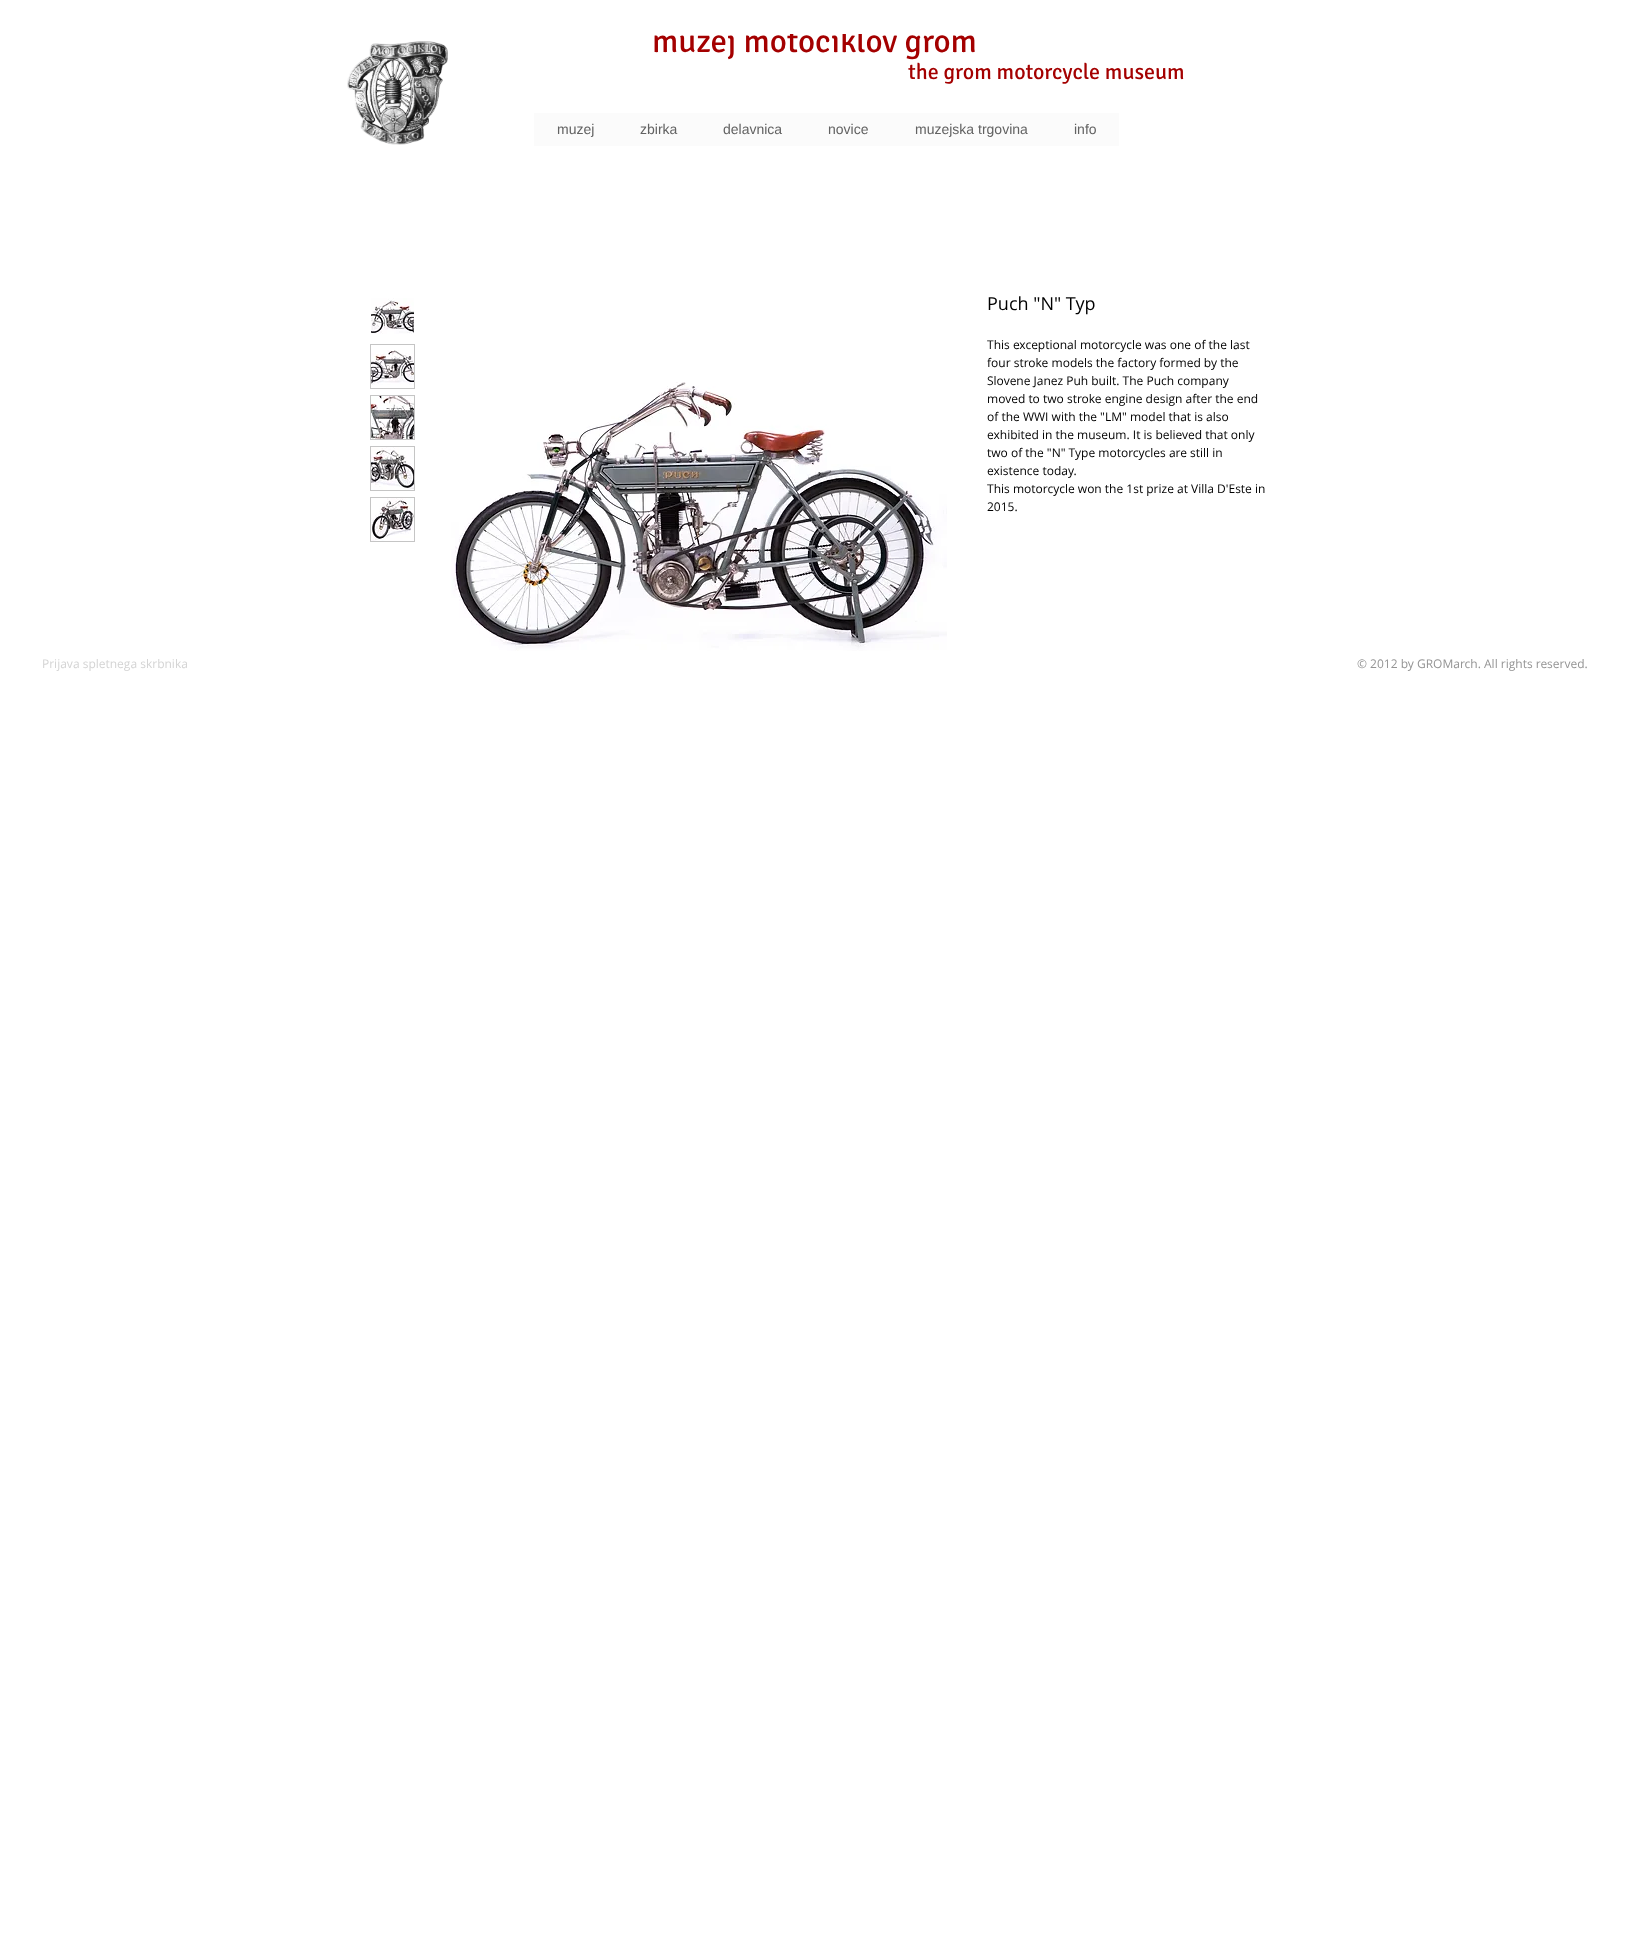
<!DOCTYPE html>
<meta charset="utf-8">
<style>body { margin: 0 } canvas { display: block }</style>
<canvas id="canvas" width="1634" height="1948"></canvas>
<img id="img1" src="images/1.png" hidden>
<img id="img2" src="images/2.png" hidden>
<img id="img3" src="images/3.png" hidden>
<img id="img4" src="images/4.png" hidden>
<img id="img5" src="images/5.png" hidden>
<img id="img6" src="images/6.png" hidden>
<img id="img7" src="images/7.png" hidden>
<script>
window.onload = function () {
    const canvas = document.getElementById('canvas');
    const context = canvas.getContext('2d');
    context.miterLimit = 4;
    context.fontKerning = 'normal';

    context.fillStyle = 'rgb(255, 255, 255)';
    context.fillRect(0, 0, 1634, 1948);
    context.drawImage(document.getElementById('img1'), 347, 41, 101, 104);
    context.fillStyle = 'rgb(251, 251, 251)';
    context.fillRect(534, 113, 585, 33);
    context.drawImage(document.getElementById('img2'), 371, 298, 43, 36);
    context.strokeStyle = 'rgb(197, 197, 197)';
    context.strokeRect(370.5, 344.5, 44, 44);
    context.drawImage(document.getElementById('img3'), 371, 350, 43, 35);
    context.strokeRect(370.5, 395.5, 44, 44);
    context.drawImage(document.getElementById('img4'), 371, 396, 43, 43);
    context.strokeRect(370.5, 446.5, 44, 44);
    context.drawImage(document.getElementById('img5'), 371, 447, 43, 43);
    context.strokeRect(370.5, 497.5, 44, 44);
    context.drawImage(document.getElementById('img6'), 371, 498, 43, 43);
    context.drawImage(document.getElementById('img7'), 451, 382, 496, 269);
    context.font = '33px Signika';
    context.fillStyle = 'rgb(164, 0, 0)';
    context.fillText('muzej motociklov grom', 652, 52);
    context.fillStyle = 'rgb(255, 255, 255)';
    context.fillRect(729, 27, 133, 7);
    context.font = '22px Signika';
    context.fillStyle = 'rgb(164, 0, 0)';
    context.fillText('the grom motorcycle museum', 908, 79);
    context.font = '14px Liberation Sans';
    context.fillStyle = 'rgb(98, 98, 98)';
    context.fillText('muzej', 557, 134);
    context.fillText('zbirka', 640, 134);
    context.fillText('delavnica', 723, 134);
    context.fillText('novice', 828, 134);
    context.fillText('muzejska trgovina', 915, 134);
    context.fillText('info', 1074, 134);
    context.font = '18px Open Sans';
    context.fillStyle = 'rgb(0, 0, 0)';
    context.fillText('Puch "N" Typ', 987, 310);
    context.font = '12px Open Sans';
    context.fillText('This exceptional motorcycle was one of the last', 987, 349);
    context.fillText('four stroke models the factory formed by the', 987, 367);
    context.fillText('Slovene Janez Puh built. The Puch company', 987, 385);
    context.fillText('moved to two stroke engine design after the end', 987, 403);
    context.fillText('of the WWI with the "LM" model that is also', 987, 421);
    context.fillText('exhibited in the museum. It is believed that only', 987, 439);
    context.fillText('two of the "N" Type motorcycles are still in', 987, 457);
    context.fillText('existence today.', 987, 475);
    context.fillText('This motorcycle won the 1st prize at Villa D\'Este in', 987, 493);
    context.fillText('2015.', 987, 511);
    context.fillStyle = 'rgb(212, 212, 212)';
    context.fillText('Prijava spletnega skrbnika', 42, 668);
    context.fillStyle = 'rgb(148, 148, 148)';
    context.fillText('© 2012 by GROMarch. All rights reserved.', 1357, 668);
};
</script>
